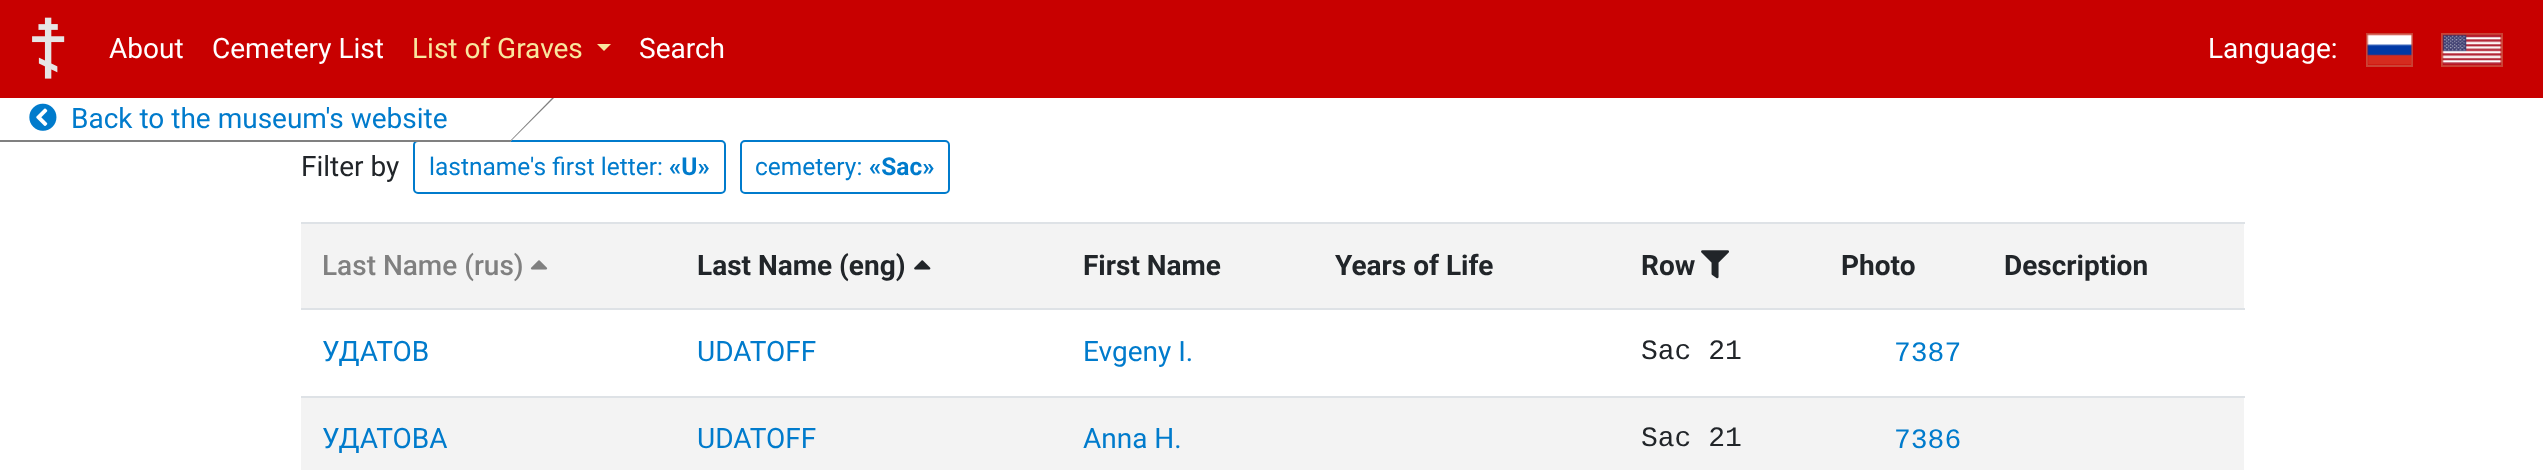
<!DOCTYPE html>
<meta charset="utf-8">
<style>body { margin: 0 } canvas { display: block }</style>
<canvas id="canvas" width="2543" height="470"></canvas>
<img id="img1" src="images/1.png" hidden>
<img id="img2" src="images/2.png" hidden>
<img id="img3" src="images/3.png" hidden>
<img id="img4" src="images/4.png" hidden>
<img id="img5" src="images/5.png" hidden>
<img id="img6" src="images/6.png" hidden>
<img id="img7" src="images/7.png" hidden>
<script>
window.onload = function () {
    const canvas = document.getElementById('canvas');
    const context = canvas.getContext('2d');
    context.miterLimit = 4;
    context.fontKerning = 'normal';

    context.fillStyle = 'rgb(255, 255, 255)';
    context.fillRect(0, 0, 2543, 470);
    context.fillStyle = 'rgb(200, 0, 0)';
    context.fillRect(0, 0, 2543, 98);
    context.drawImage(document.getElementById('img1'), 32, 17, 33, 62);
    context.fillStyle = 'rgb(249, 231, 159)';
    context.beginPath();
    context.moveTo(597, 44);
    context.lineTo(611, 44);
    context.lineTo(604, 51);
    context.closePath();
    context.fill();
    context.strokeStyle = 'rgb(203, 67, 53)';
    context.lineWidth = 2;
    context.strokeRect(2367, 34, 45, 32);
    context.drawImage(document.getElementById('img2'), 2367, 34, 46, 31);
    context.strokeRect(2442, 34, 60, 32);
    context.drawImage(document.getElementById('img3'), 2442, 34, 60, 32);
    context.beginPath();
    context.roundRect(414, 141, 311, 52, 4);
    context.strokeStyle = 'rgb(0, 123, 204)';
    context.stroke();
    context.fillStyle = 'rgb(255, 255, 255)';
    context.beginPath();
    context.moveTo(22, 98);
    context.lineTo(554, 98);
    context.lineTo(510, 142);
    context.lineTo(-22, 142);
    context.closePath();
    context.fill();
    context.fillStyle = 'rgb(128, 128, 128)';
    context.beginPath();
    context.moveTo(552, 98);
    context.lineTo(554, 98);
    context.lineTo(510, 142);
    context.lineTo(509, 142);
    context.closePath();
    context.fill();
    context.beginPath();
    context.moveTo(-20, 140);
    context.lineTo(512, 140);
    context.lineTo(510, 142);
    context.lineTo(-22, 142);
    context.closePath();
    context.fill();
    context.drawImage(document.getElementById('img4'), 29, 103, 28, 28);
    context.beginPath();
    context.roundRect(741, 141, 208, 52, 4);
    context.stroke();
    context.fillStyle = 'rgb(243, 243, 243)';
    context.fillRect(301, 224, 1943, 84);
    context.drawImage(document.getElementById('img5'), 530, 260, 18, 10);
    context.drawImage(document.getElementById('img6'), 914, 260, 17, 10);
    context.drawImage(document.getElementById('img7'), 1701, 250, 28, 29);
    context.fillStyle = 'rgb(222, 226, 230)';
    context.fillRect(301, 222, 1944, 2);
    context.fillRect(301, 308, 1944, 2);
    context.fillStyle = 'rgb(243, 243, 243)';
    context.fillRect(301, 398, 1943, 72);
    context.fillStyle = 'rgb(222, 226, 230)';
    context.fillRect(301, 396, 1944, 2);
    context.font = '28px Roboto';
    context.fillStyle = 'rgb(255, 255, 255)';
    context.fillText('About', 109, 58);
    context.fillText('Cemetery List', 212, 58);
    context.fillStyle = 'rgb(249, 231, 159)';
    context.fillText('List of Graves', 412, 58);
    context.fillStyle = 'rgb(255, 255, 255)';
    context.fillText('Search', 639, 58);
    context.fillText('Language:', 2208, 58);
    context.fillStyle = 'rgb(0, 123, 204)';
    context.fillText('Back to the museum\'s website', 71, 128);
    context.fillStyle = 'rgb(33, 37, 41)';
    context.fillText('Filter by', 301, 176);
    context.font = '24.5px Roboto';
    context.fillStyle = 'rgb(0, 123, 204)';
    context.fillText('lastname\'s first letter:', 429, 175);
    context.font = 'bold 24.5px Roboto';
    context.fillText('«U»', 669, 175);
    context.font = '24.5px Roboto';
    context.fillText('cemetery:', 755, 175);
    context.font = 'bold 24.5px Roboto';
    context.fillText('«Sac»', 869, 175);
    context.font = '500 28px Roboto';
    context.fillStyle = 'rgb(128, 128, 128)';
    context.fillText('Last Name (rus)', 322, 275);
    context.font = 'bold 28px Roboto';
    context.fillStyle = 'rgb(33, 37, 41)';
    context.fillText('Last Name (eng)', 697, 275);
    context.fillText('First Name', 1083, 275);
    context.fillText('Years of Life', 1335, 275);
    context.fillText('Row', 1641, 275);
    context.fillText('Photo', 1841, 275);
    context.fillText('Description', 2004, 275);
    context.font = '28px Roboto';
    context.fillStyle = 'rgb(0, 123, 204)';
    context.fillText('УДАТОВ', 322, 361);
    context.fillText('UDATOFF', 697, 361);
    context.fillText('Evgeny I.', 1083, 361);
    context.font = '28px Liberation Mono';
    context.fillStyle = 'rgb(33, 37, 41)';
    context.fillText('Sac 21', 1641, 359);
    context.fillStyle = 'rgb(0, 123, 204)';
    context.fillText('7387', 1894, 361);
    context.font = '28px Roboto';
    context.fillText('УДАТОВА', 322, 448);
    context.fillText('UDATOFF', 697, 448);
    context.fillText('Anna H.', 1083, 448);
    context.font = '28px Liberation Mono';
    context.fillStyle = 'rgb(33, 37, 41)';
    context.fillText('Sac 21', 1641, 446);
    context.fillStyle = 'rgb(0, 123, 204)';
    context.fillText('7386', 1894, 448);
};
</script>
